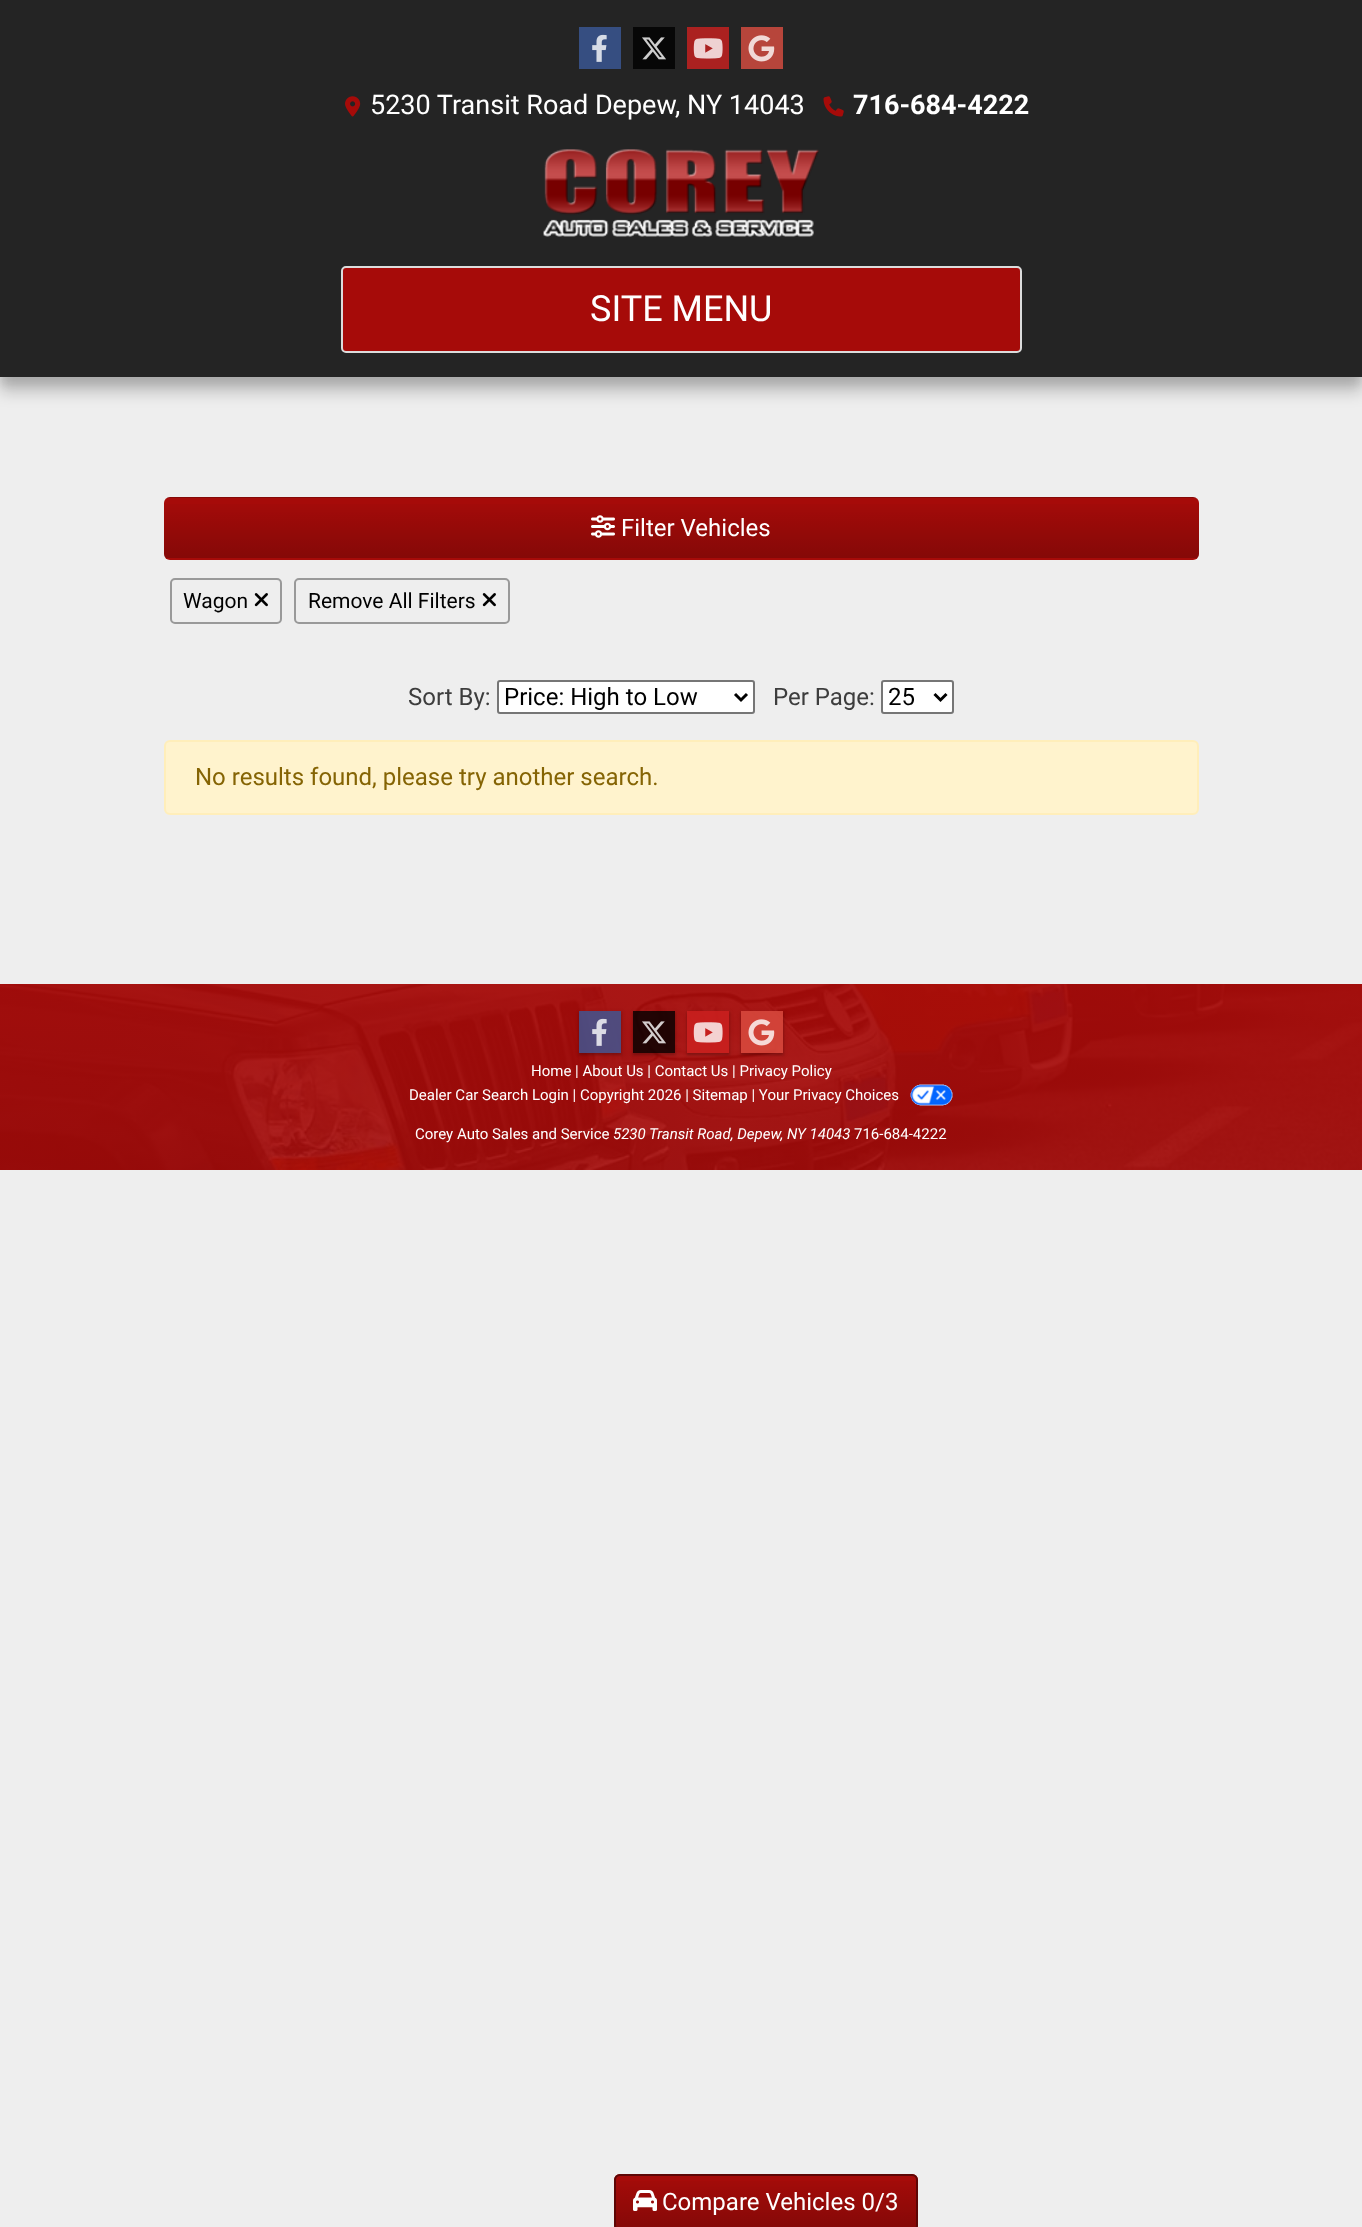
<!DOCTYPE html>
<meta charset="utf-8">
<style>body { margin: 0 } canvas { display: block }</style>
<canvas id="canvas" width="1362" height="2227"></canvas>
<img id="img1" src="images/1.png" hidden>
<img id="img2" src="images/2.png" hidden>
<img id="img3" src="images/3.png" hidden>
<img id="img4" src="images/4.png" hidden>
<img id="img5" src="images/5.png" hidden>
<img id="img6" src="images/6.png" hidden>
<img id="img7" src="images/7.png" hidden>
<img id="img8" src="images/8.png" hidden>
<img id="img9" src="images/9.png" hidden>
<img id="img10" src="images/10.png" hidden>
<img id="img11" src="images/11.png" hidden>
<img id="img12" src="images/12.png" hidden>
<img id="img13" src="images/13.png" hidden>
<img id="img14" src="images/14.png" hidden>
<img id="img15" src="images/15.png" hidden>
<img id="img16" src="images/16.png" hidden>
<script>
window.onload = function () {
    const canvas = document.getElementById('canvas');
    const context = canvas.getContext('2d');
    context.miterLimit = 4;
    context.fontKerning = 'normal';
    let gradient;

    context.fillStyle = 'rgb(238, 238, 238)';
    context.fillRect(0, 0, 1362, 2227);
    context.save();
    context.beginPath();
    context.moveTo(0, 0);
    context.lineTo(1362, 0);
    context.lineTo(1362, 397);
    context.lineTo(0, 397);
    context.closePath();
    context.moveTo(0, 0);
    context.lineTo(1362, 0);
    context.lineTo(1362, 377);
    context.lineTo(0, 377);
    context.closePath();
    context.clip('evenodd');
    context.fillStyle = 'rgba(0, 0, 0, 0.1)';
    context.filter = 'blur(4px)';
    context.beginPath();
    context.rect(0, 8, 1362, 376);
    context.fill();
    context.filter = 'none';
    context.restore();
    context.save();
    context.beginPath();
    context.moveTo(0, 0);
    context.lineTo(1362, 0);
    context.lineTo(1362, 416);
    context.lineTo(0, 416);
    context.closePath();
    context.moveTo(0, 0);
    context.lineTo(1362, 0);
    context.lineTo(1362, 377);
    context.lineTo(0, 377);
    context.closePath();
    context.clip('evenodd');
    context.fillStyle = 'rgba(0, 0, 0, 0.2)';
    context.filter = 'blur(7.5px)';
    context.beginPath();
    context.rect(0, 15, 1362, 377);
    context.fill();
    context.filter = 'none';
    context.restore();
    context.fillStyle = 'rgba(24, 24, 24, 0.95)';
    context.fillRect(0, 0, 1362, 377);
    context.fillStyle = 'rgb(54, 78, 129)';
    context.fillRect(579, 27, 42, 42);
    context.drawImage(document.getElementById('img1'), 592, 34, 15, 28);
    context.fillStyle = 'rgb(7, 7, 7)';
    context.fillRect(633, 27, 42, 42);
    context.drawImage(document.getElementById('img2'), 642, 37, 24, 23);
    context.fillStyle = 'rgb(171, 33, 32)';
    context.fillRect(687, 27, 42, 42);
    context.drawImage(document.getElementById('img3'), 693, 38, 30, 21);
    context.fillStyle = 'rgb(183, 69, 59)';
    context.fillRect(741, 27, 42, 42);
    context.drawImage(document.getElementById('img4'), 748, 35, 27, 27);
    context.drawImage(document.getElementById('img5'), 345, 96, 16, 21);
    context.drawImage(document.getElementById('img6'), 823, 96, 21, 21);
    context.drawImage(document.getElementById('img7'), 543, 149, 276, 88);
    context.fillStyle = 'rgb(166, 11, 9)';
    context.beginPath();
    context.roundRect(342, 267, 679, 85, 4);
    context.fill();
    context.strokeStyle = 'rgb(220, 220, 220)';
    context.lineWidth = 2;
    context.stroke();
    context.beginPath();
    context.roundRect(164, 497, 1035, 63, 6);
    context.fill();
    context.save();
    context.beginPath();
    context.roundRect(164, 497, 1035, 63, 6);
    context.clip();
    gradient = context.createLinearGradient(681, 438, 681, 498);
    gradient.addColorStop(0, 'rgba(0, 0, 0, 0)');
    gradient.addColorStop(1, 'rgba(0, 0, 0, 0.2)');
    context.fillStyle = gradient;
    context.fillRect(164, 497, 1035, 1);
    gradient = context.createLinearGradient(681, 498, 681, 558);
    gradient.addColorStop(0, 'rgba(0, 0, 0, 0)');
    gradient.addColorStop(1, 'rgba(0, 0, 0, 0.2)');
    context.fillStyle = gradient;
    context.fillRect(164, 504, 1035, 54);
    context.restore();
    context.drawImage(document.getElementById('img8'), 591, 515, 24, 23);
    context.beginPath();
    context.roundRect(171, 579, 110, 44, 4);
    context.strokeStyle = 'rgb(153, 153, 153)';
    context.stroke();
    context.drawImage(document.getElementById('img9'), 254, 593, 14, 14);
    context.beginPath();
    context.roundRect(295, 579, 214, 44, 4);
    context.stroke();
    context.drawImage(document.getElementById('img9'), 482, 593, 14, 14);
    context.fillStyle = 'rgb(255, 255, 255)';
    context.beginPath();
    context.roundRect(498, 681, 256, 32, 2);
    context.fill();
    context.strokeStyle = 'rgb(118, 118, 118)';
    context.stroke();
    context.beginPath();
    context.moveTo(735, 694);
    context.lineTo(741, 700);
    context.lineTo(747, 694);
    context.strokeStyle = 'rgb(0, 0, 0)';
    context.lineWidth = 3;
    context.stroke();
    context.beginPath();
    context.roundRect(882, 681, 71, 32, 2);
    context.fill();
    context.strokeStyle = 'rgb(118, 118, 118)';
    context.lineWidth = 2;
    context.stroke();
    context.beginPath();
    context.moveTo(934.5, 694);
    context.lineTo(940.5, 700);
    context.lineTo(946.5, 694);
    context.strokeStyle = 'rgb(0, 0, 0)';
    context.lineWidth = 3;
    context.stroke();
    context.fillStyle = 'rgb(255, 243, 205)';
    context.beginPath();
    context.roundRect(165, 741, 1033, 73, 5);
    context.fill();
    context.strokeStyle = 'rgb(255, 238, 186)';
    context.lineWidth = 2;
    context.stroke();
    context.fillStyle = 'rgb(166, 11, 9)';
    context.beginPath();
    context.roundRect(614, 2174, 304, 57, 6);
    context.fill();
    gradient = context.createLinearGradient(766, 2175, 766, 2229);
    gradient.addColorStop(0, 'rgba(0, 0, 0, 0)');
    gradient.addColorStop(1, 'rgba(0, 0, 0, 0.2)');
    context.fillStyle = gradient;
    context.fillRect(614, 2181, 304, 46);
    context.beginPath();
    context.roundRect(615, 2175, 302, 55, 5);
    context.strokeStyle = 'rgb(93, 6, 5)';
    context.stroke();
    context.drawImage(document.getElementById('img10'), 633, 2190, 24, 21);
    context.drawImage(document.getElementById('img11'), 0, 984, 1362, 186);
    context.save();
    context.beginPath();
    context.moveTo(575, 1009);
    context.lineTo(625, 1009);
    context.lineTo(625, 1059);
    context.lineTo(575, 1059);
    context.closePath();
    context.moveTo(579, 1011);
    context.lineTo(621, 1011);
    context.lineTo(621, 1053);
    context.lineTo(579, 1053);
    context.closePath();
    context.clip('evenodd');
    context.fillStyle = 'rgba(0, 0, 0, 0.16)';
    context.filter = 'blur(1px)';
    context.beginPath();
    context.rect(579, 1013, 42, 42);
    context.fill();
    context.filter = 'none';
    context.restore();
    context.save();
    context.beginPath();
    context.moveTo(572, 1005);
    context.lineTo(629, 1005);
    context.lineTo(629, 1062);
    context.lineTo(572, 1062);
    context.closePath();
    context.moveTo(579, 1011);
    context.lineTo(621, 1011);
    context.lineTo(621, 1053);
    context.lineTo(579, 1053);
    context.closePath();
    context.clip('evenodd');
    context.fillStyle = 'rgba(0, 0, 0, 0.08)';
    context.filter = 'blur(1.5px)';
    context.beginPath();
    context.rect(578, 1011, 45, 45);
    context.fill();
    context.filter = 'none';
    context.restore();
    context.fillStyle = 'rgba(59, 89, 152, 0.8)';
    context.fillRect(579, 1011, 42, 42);
    context.drawImage(document.getElementById('img12'), 592, 1018, 15, 28);
    context.save();
    context.beginPath();
    context.moveTo(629, 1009);
    context.lineTo(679, 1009);
    context.lineTo(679, 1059);
    context.lineTo(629, 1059);
    context.closePath();
    context.moveTo(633, 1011);
    context.lineTo(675, 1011);
    context.lineTo(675, 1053);
    context.lineTo(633, 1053);
    context.closePath();
    context.clip('evenodd');
    context.fillStyle = 'rgba(0, 0, 0, 0.16)';
    context.filter = 'blur(1px)';
    context.beginPath();
    context.rect(633, 1013, 42, 42);
    context.fill();
    context.filter = 'none';
    context.restore();
    context.save();
    context.beginPath();
    context.moveTo(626, 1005);
    context.lineTo(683, 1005);
    context.lineTo(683, 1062);
    context.lineTo(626, 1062);
    context.closePath();
    context.moveTo(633, 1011);
    context.lineTo(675, 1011);
    context.lineTo(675, 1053);
    context.lineTo(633, 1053);
    context.closePath();
    context.clip('evenodd');
    context.fillStyle = 'rgba(0, 0, 0, 0.08)';
    context.filter = 'blur(1.5px)';
    context.beginPath();
    context.rect(632, 1011, 45, 45);
    context.fill();
    context.filter = 'none';
    context.restore();
    context.fillStyle = 'rgba(0, 0, 0, 0.8)';
    context.fillRect(633, 1011, 42, 42);
    context.drawImage(document.getElementById('img13'), 642, 1021, 24, 23);
    context.save();
    context.beginPath();
    context.moveTo(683, 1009);
    context.lineTo(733, 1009);
    context.lineTo(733, 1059);
    context.lineTo(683, 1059);
    context.closePath();
    context.moveTo(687, 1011);
    context.lineTo(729, 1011);
    context.lineTo(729, 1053);
    context.lineTo(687, 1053);
    context.closePath();
    context.clip('evenodd');
    context.fillStyle = 'rgba(0, 0, 0, 0.16)';
    context.filter = 'blur(1px)';
    context.beginPath();
    context.rect(687, 1013, 42, 42);
    context.fill();
    context.filter = 'none';
    context.restore();
    context.save();
    context.beginPath();
    context.moveTo(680, 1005);
    context.lineTo(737, 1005);
    context.lineTo(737, 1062);
    context.lineTo(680, 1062);
    context.closePath();
    context.moveTo(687, 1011);
    context.lineTo(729, 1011);
    context.lineTo(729, 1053);
    context.lineTo(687, 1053);
    context.closePath();
    context.clip('evenodd');
    context.fillStyle = 'rgba(0, 0, 0, 0.08)';
    context.filter = 'blur(1.5px)';
    context.beginPath();
    context.rect(686, 1011, 45, 45);
    context.fill();
    context.filter = 'none';
    context.restore();
    context.fillStyle = 'rgba(205, 32, 31, 0.8)';
    context.fillRect(687, 1011, 42, 42);
    context.drawImage(document.getElementById('img14'), 693, 1022, 30, 21);
    context.save();
    context.beginPath();
    context.moveTo(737, 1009);
    context.lineTo(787, 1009);
    context.lineTo(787, 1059);
    context.lineTo(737, 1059);
    context.closePath();
    context.moveTo(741, 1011);
    context.lineTo(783, 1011);
    context.lineTo(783, 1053);
    context.lineTo(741, 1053);
    context.closePath();
    context.clip('evenodd');
    context.fillStyle = 'rgba(0, 0, 0, 0.16)';
    context.filter = 'blur(1px)';
    context.beginPath();
    context.rect(741, 1013, 42, 42);
    context.fill();
    context.filter = 'none';
    context.restore();
    context.save();
    context.beginPath();
    context.moveTo(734, 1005);
    context.lineTo(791, 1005);
    context.lineTo(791, 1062);
    context.lineTo(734, 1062);
    context.closePath();
    context.moveTo(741, 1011);
    context.lineTo(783, 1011);
    context.lineTo(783, 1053);
    context.lineTo(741, 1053);
    context.closePath();
    context.clip('evenodd');
    context.fillStyle = 'rgba(0, 0, 0, 0.08)';
    context.filter = 'blur(1.5px)';
    context.beginPath();
    context.rect(740, 1011, 45, 45);
    context.fill();
    context.filter = 'none';
    context.restore();
    context.fillStyle = 'rgba(220, 78, 65, 0.8)';
    context.fillRect(741, 1011, 42, 42);
    context.drawImage(document.getElementById('img15'), 748, 1019, 27, 27);
    context.drawImage(document.getElementById('img16'), 910, 1084, 43, 22);
    context.font = '27px Roboto';
    context.fillStyle = 'rgb(255, 255, 255)';
    context.fillText('5230 Transit Road Depew, NY 14043', 370, 114);
    context.font = 'bold 27px Roboto';
    context.fillText('716-684-4222', 853, 114);
    context.font = '36px Roboto';
    context.fillText('SITE MENU', 590, 321);
    context.font = '24px Roboto';
    context.fillText('Filter Vehicles', 621, 536);
    context.font = '21px Roboto';
    context.fillStyle = 'rgb(0, 0, 0)';
    context.fillText('Wagon', 183, 608);
    context.fillText('Remove All Filters', 308, 608);
    context.font = '24px Roboto';
    context.fillStyle = 'rgb(61, 61, 61)';
    context.fillText('Sort By:', 408, 705);
    context.fillStyle = 'rgb(0, 0, 0)';
    context.fillText('Price: High to Low', 504, 705);
    context.fillStyle = 'rgb(61, 61, 61)';
    context.fillText('Per Page:', 773, 705);
    context.fillStyle = 'rgb(0, 0, 0)';
    context.fillText('25', 888, 705);
    context.fillStyle = 'rgb(133, 100, 4)';
    context.fillText('No results found, please try another search.', 195, 785);
    context.fillStyle = 'rgb(255, 255, 255)';
    context.fillText('Compare Vehicles 0/3', 662, 2210);
    context.font = '15px Roboto';
    context.fillText('Home | About Us | Contact Us | Privacy Policy', 531, 1076);
    context.fillText('Dealer Car Search Login | Copyright 2026 | Sitemap | Your Privacy Choices', 409, 1100);
    context.fillText('Corey Auto Sales and Service', 415, 1139);
    context.font = 'italic 15px Roboto';
    context.fillText('5230 Transit Road, Depew, NY 14043', 613, 1139);
    context.font = '15px Roboto';
    context.fillText('716-684-4222', 854, 1139);
};
</script>
